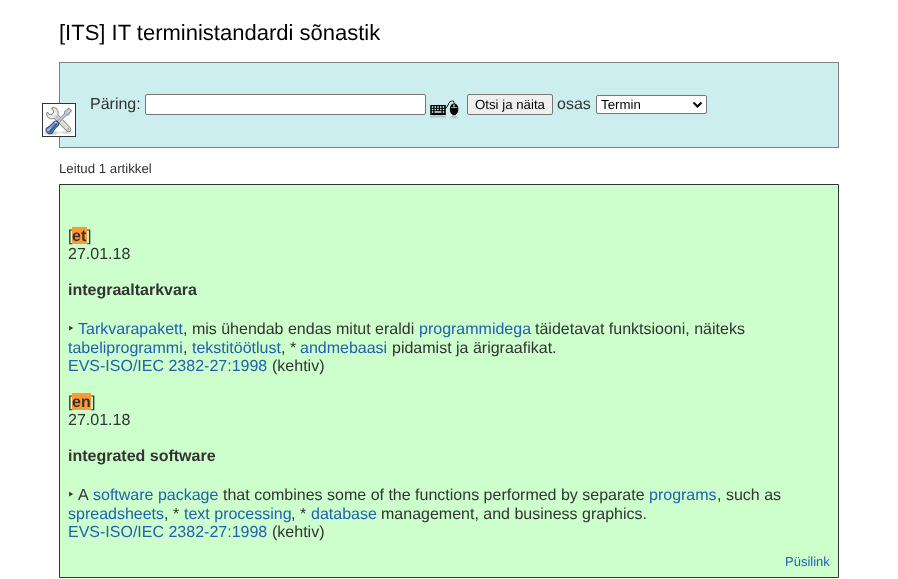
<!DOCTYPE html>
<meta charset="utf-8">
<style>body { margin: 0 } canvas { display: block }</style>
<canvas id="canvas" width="898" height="579"></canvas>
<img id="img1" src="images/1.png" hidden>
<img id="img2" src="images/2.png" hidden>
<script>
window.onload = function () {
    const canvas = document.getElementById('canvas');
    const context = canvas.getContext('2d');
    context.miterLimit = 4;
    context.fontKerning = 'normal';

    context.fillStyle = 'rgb(255, 255, 255)';
    context.fillRect(0, 0, 898, 579);
    context.fillStyle = 'rgb(204, 238, 238)';
    context.fillRect(60, 63, 778, 84);
    context.fillStyle = 'rgb(128, 128, 128)';
    context.fillRect(59, 62, 780, 1);
    context.fillRect(838, 62, 1, 86);
    context.fillRect(59, 147, 780, 1);
    context.fillRect(59, 62, 1, 86);
    context.fillStyle = 'rgb(255, 255, 255)';
    context.fillRect(59, 104, 16, 32);
    context.strokeStyle = 'rgb(51, 51, 51)';
    context.strokeRect(42.5, 103.5, 33, 33);
    context.drawImage(document.getElementById('img1'), 43, 107, 31, 28);
    context.beginPath();
    context.roundRect(145.5, 94.5, 280, 20, 1.5);
    context.fill();
    context.strokeStyle = 'rgb(118, 118, 118)';
    context.stroke();
    context.drawImage(document.getElementById('img2'), 430, 100, 29, 19);
    context.fillStyle = 'rgb(239, 239, 239)';
    context.beginPath();
    context.roundRect(467.5, 94.5, 85, 20, 1.5);
    context.fill();
    context.stroke();
    context.fillStyle = 'rgb(255, 255, 255)';
    context.beginPath();
    context.roundRect(596.5, 95.5, 110, 18, 1.5);
    context.fill();
    context.stroke();
    context.beginPath();
    context.moveTo(693.5, 102.5);
    context.lineTo(697.5, 106.5);
    context.lineTo(701.5, 102.5);
    context.strokeStyle = 'rgb(0, 0, 0)';
    context.lineWidth = 2;
    context.stroke();
    context.fillStyle = 'rgb(204, 255, 204)';
    context.beginPath();
    context.rect(59.5, 184.5, 779, 393);
    context.fill();
    context.strokeStyle = 'rgb(51, 51, 51)';
    context.lineWidth = 1;
    context.stroke();
    context.font = '22px Liberation Sans';
    context.fillStyle = 'rgb(0, 0, 0)';
    context.fillText('[ITS] IT terministandardi sõnastik', 59, 40);
    context.font = '16px Liberation Sans';
    context.fillStyle = 'rgb(51, 51, 51)';
    context.fillText('Päring:', 90, 109);
    context.font = '13.25px Liberation Sans';
    context.fillStyle = 'rgb(0, 0, 0)';
    context.fillText('Otsi ja näita', 475, 109);
    context.font = '16px Liberation Sans';
    context.fillStyle = 'rgb(51, 51, 51)';
    context.fillText('osas', 557, 109);
    context.font = '13.25px Liberation Sans';
    context.fillStyle = 'rgb(0, 0, 0)';
    context.fillText('Termin', 601, 109);
    context.fillStyle = 'rgb(51, 51, 51)';
    context.fillText('Leitud 1 artikkel', 59, 173);
    context.font = '16px Liberation Sans';
    context.fillText('[', 68, 241);
    context.fillStyle = 'rgb(255, 153, 51)';
    context.fillRect(72, 227, 15, 17);
    context.font = 'bold 16px Liberation Sans';
    context.fillStyle = 'rgb(51, 51, 51)';
    context.fillText('et', 72, 241);
    context.font = '16px Liberation Sans';
    context.fillText(']', 87, 241);
    context.fillText('27.01.18', 68, 259);
    context.font = 'bold 16px Liberation Sans';
    context.fillText('integraaltarkvara', 68, 295);
    context.font = '16px Noto Sans';
    context.fillText('‣', 68, 334);
    context.font = '16px Liberation Sans';
    context.fillStyle = 'rgb(36, 96, 173)';
    context.fillText('Tarkvarapakett', 78, 334);
    context.fillStyle = 'rgb(51, 51, 51)';
    context.fillText(', mis ühendab endas mitut eraldi', 183, 334);
    context.fillStyle = 'rgb(36, 96, 173)';
    context.fillText('programmidega', 419, 334);
    context.fillStyle = 'rgb(51, 51, 51)';
    context.fillText('täidetavat funktsiooni, näiteks', 535, 334);
    context.fillStyle = 'rgb(36, 96, 173)';
    context.fillText('tabeliprogrammi', 68, 353);
    context.fillStyle = 'rgb(51, 51, 51)';
    context.fillText(',', 183, 353);
    context.fillStyle = 'rgb(36, 96, 173)';
    context.fillText('tekstitöötlust', 192, 353);
    context.fillStyle = 'rgb(51, 51, 51)';
    context.fillText(', *', 281, 353);
    context.fillStyle = 'rgb(36, 96, 173)';
    context.fillText('andmebaasi', 300, 353);
    context.fillStyle = 'rgb(51, 51, 51)';
    context.fillText('pidamist ja ärigraafikat.', 392, 353);
    context.fillStyle = 'rgb(36, 96, 173)';
    context.fillText('EVS-ISO/IEC 2382-27:1998', 68, 371);
    context.fillStyle = 'rgb(51, 51, 51)';
    context.fillText('(kehtiv)', 272, 371);
    context.fillText('[', 68, 407);
    context.fillStyle = 'rgb(255, 153, 51)';
    context.fillRect(72, 393, 19, 17);
    context.font = 'bold 16px Liberation Sans';
    context.fillStyle = 'rgb(51, 51, 51)';
    context.fillText('en', 72, 407);
    context.font = '16px Liberation Sans';
    context.fillText(']', 91, 407);
    context.fillText('27.01.18', 68, 425);
    context.font = 'bold 16px Liberation Sans';
    context.fillText('integrated software', 68, 461);
    context.font = '16px Noto Sans';
    context.fillText('‣', 68, 500);
    context.font = '16px Liberation Sans';
    context.fillText('A', 78, 500);
    context.fillStyle = 'rgb(36, 96, 173)';
    context.fillText('software package', 93, 500);
    context.fillStyle = 'rgb(51, 51, 51)';
    context.fillText('that combines some of the functions performed by separate', 223, 500);
    context.fillStyle = 'rgb(36, 96, 173)';
    context.fillText('programs', 649, 500);
    context.fillStyle = 'rgb(51, 51, 51)';
    context.fillText(', such as', 717, 500);
    context.fillStyle = 'rgb(36, 96, 173)';
    context.fillText('spreadsheets', 68, 519);
    context.fillStyle = 'rgb(51, 51, 51)';
    context.fillText(', *', 164, 519);
    context.fillStyle = 'rgb(36, 96, 173)';
    context.fillText('text processing', 184, 519);
    context.fillStyle = 'rgb(51, 51, 51)';
    context.fillText(', *', 291, 519);
    context.fillStyle = 'rgb(36, 96, 173)';
    context.fillText('database', 311, 519);
    context.fillStyle = 'rgb(51, 51, 51)';
    context.fillText('management, and business graphics.', 381, 519);
    context.fillStyle = 'rgb(36, 96, 173)';
    context.fillText('EVS-ISO/IEC 2382-27:1998', 68, 537);
    context.fillStyle = 'rgb(51, 51, 51)';
    context.fillText('(kehtiv)', 272, 537);
    context.font = '13px Liberation Sans';
    context.fillStyle = 'rgb(36, 96, 173)';
    context.fillText('Püsilink', 785, 566);
};
</script>
